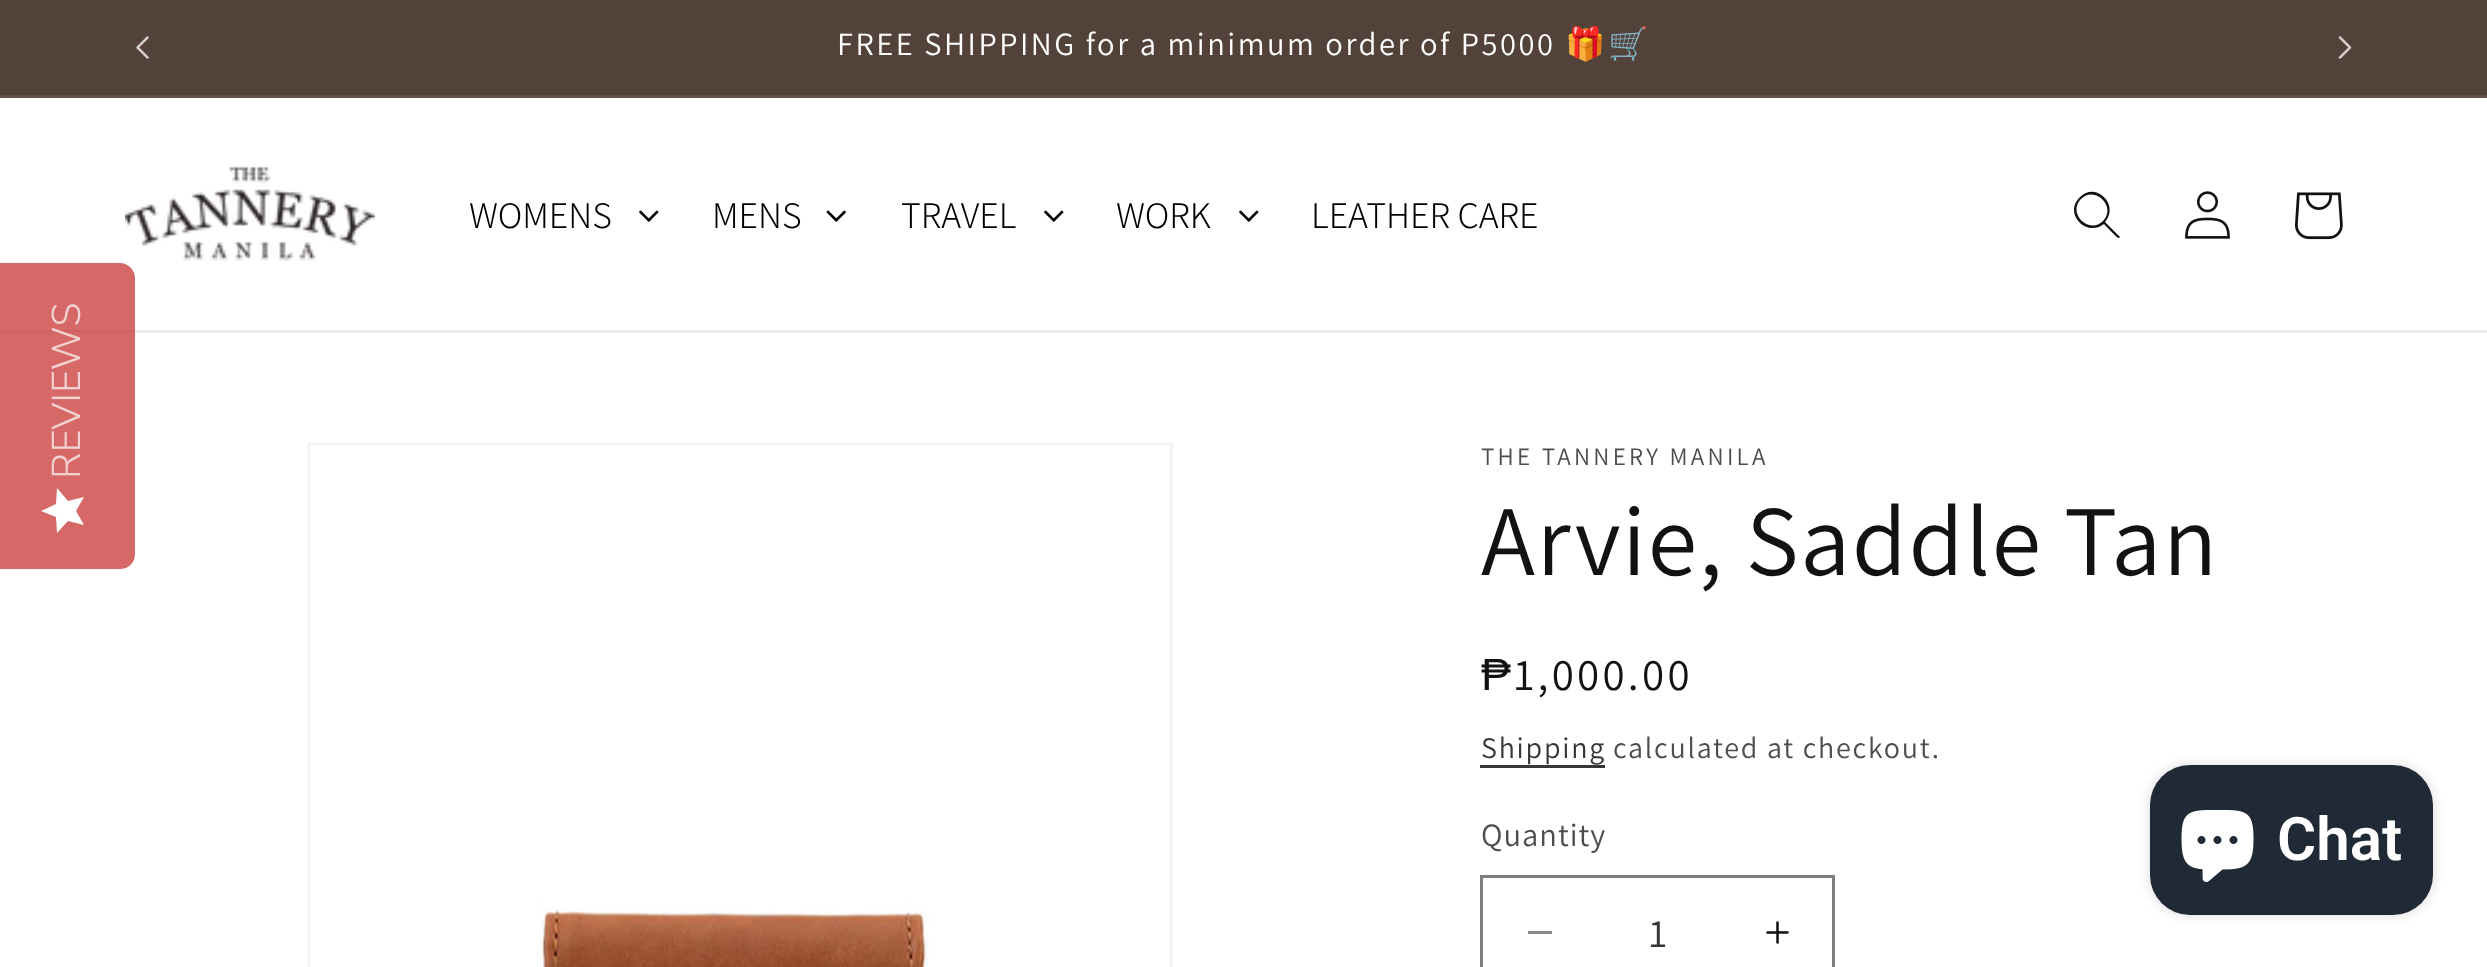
<!DOCTYPE html>
<meta charset="utf-8">
<style>body { margin: 0 } canvas { display: block }</style>
<canvas id="canvas" width="2487" height="967"></canvas>
<img id="img1" src="images/1.png" hidden>
<img id="img2" src="images/2.png" hidden>
<img id="img3" src="images/3.png" hidden>
<img id="img4" src="images/4.png" hidden>
<img id="img5" src="images/5.png" hidden>
<img id="img6" src="images/6.png" hidden>
<img id="img7" src="images/7.png" hidden>
<img id="img8" src="images/8.png" hidden>
<img id="img9" src="images/9.png" hidden>
<img id="img10" src="images/10.png" hidden>
<script>
window.onload = function () {
    const canvas = document.getElementById('canvas');
    const context = canvas.getContext('2d');
    context.miterLimit = 4;
    context.fontKerning = 'normal';
    let gradient;

    context.fillStyle = 'rgb(255, 255, 255)';
    context.fillRect(0, 0, 2487, 967);
    context.fillStyle = 'rgb(83, 66, 58)';
    context.fillRect(0, 0, 2487, 95);
    context.fillStyle = 'rgb(97, 81, 74)';
    context.fillRect(0, 95, 2487, 3);
    context.drawImage(document.getElementById('img1'), 136, 36, 13, 23);
    context.drawImage(document.getElementById('img2'), 2338, 36, 14, 23);
    context.fillStyle = 'rgb(236, 236, 236)';
    context.fillRect(0, 330, 2487, 3);
    context.drawImage(document.getElementById('img3'), 125, 166, 250, 95);
    context.drawImage(document.getElementById('img4'), 639, 210, 20, 12);
    context.drawImage(document.getElementById('img5'), 826, 210, 20, 12);
    context.drawImage(document.getElementById('img4'), 1044, 210, 20, 12);
    context.drawImage(document.getElementById('img4'), 1239, 210, 20, 12);
    context.fillStyle = 'rgb(18, 18, 18)';
    context.beginPath();
    context.moveTo(2103, 221);
    context.bezierCurveTo(2089, 235, 2067, 213, 2081, 199);
    context.bezierCurveTo(2095, 185, 2117, 207, 2103, 221);
    context.closePath();
    context.moveTo(2104, 224);
    context.bezierCurveTo(2086, 238, 2063, 213, 2080, 197);
    context.bezierCurveTo(2096, 181, 2120, 205, 2105, 222);
    context.lineTo(2120, 237);
    context.lineTo(2119, 238);
    context.bezierCurveTo(2118, 239, 2106, 226, 2104, 224);
    context.closePath();
    context.fill('evenodd');
    context.drawImage(document.getElementById('img6'), 2185, 191, 45, 48);
    context.drawImage(document.getElementById('img7'), 2295, 192, 48, 48);
    context.fillStyle = 'rgba(198, 40, 40, 0.7)';
    context.beginPath();
    context.moveTo(0, 569);
    context.lineTo(0, 263);
    context.lineTo(120, 263);
    context.bezierCurveTo(128, 263, 135, 270, 135, 278);
    context.lineTo(135, 554);
    context.bezierCurveTo(135, 563, 128, 569, 120, 569);
    context.closePath();
    context.fill();
    gradient = context.createLinearGradient(41, 533, 41, 488);
    gradient.addColorStop(1, 'rgb(255, 255, 255)');
    gradient.addColorStop(1, 'rgb(240, 240, 240)');
    context.fillStyle = gradient;
    context.beginPath();
    context.moveTo(76, 511);
    context.lineTo(84, 497);
    context.lineTo(68, 501);
    context.lineTo(57, 488);
    context.lineTo(56, 504);
    context.lineTo(41, 511);
    context.lineTo(56, 517);
    context.lineTo(57, 533);
    context.lineTo(68, 521);
    context.lineTo(84, 525);
    context.closePath();
    context.fill();
    context.strokeStyle = 'rgb(243, 243, 243)';
    context.lineWidth = 3;
    context.strokeRect(309.5, 444.5, 862, 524);
    context.drawImage(document.getElementById('img8'), 310, 445, 860, 522);
    context.fillStyle = 'rgb(54, 54, 54)';
    context.fillRect(1480, 765, 125, 3);
    context.fillStyle = 'rgb(137, 137, 137)';
    context.fillRect(1528, 931, 24, 3);
    context.drawImage(document.getElementById('img9'), 1766, 921, 23, 23);
    context.strokeStyle = 'rgb(125, 125, 125)';
    context.strokeRect(1481.5, 876.5, 352, 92);
    context.fillStyle = 'rgba(0, 0, 0, 0.15)';
    context.filter = 'blur(6px)';
    context.beginPath();
    context.roundRect(2150, 765, 283, 150, 40);
    context.fill();
    context.filter = 'none';
    context.fillStyle = 'rgb(32, 42, 54)';
    context.beginPath();
    context.roundRect(2150, 765, 283, 150, 40);
    context.fill();
    context.drawImage(document.getElementById('img10'), 2181, 810, 73, 72);
    context.letterSpacing = '2.5px';
    context.font = '32.5px Assistant';
    context.fillStyle = 'rgb(255, 255, 255)';
    context.fillText('FREE SHIPPING for a minimum order of P5000', 837, 55);
    context.font = '32.5px Noto Color Emoji';
    context.fillText('🎁🛒', 1565, 55);
    context.letterSpacing = '0px';
    context.font = '300 37.5px Assistant';
    context.fillStyle = 'rgb(0, 0, 0)';
    context.fillText('WOMENS', 469, 228);
    context.fillText('MENS', 712, 228);
    context.fillText('TRAVEL', 901, 228);
    context.fillText('WORK', 1116, 228);
    context.fillText('LEATHER CARE', 1311, 228);
    context.font = '300 40px Nunito Sans';
    context.fillStyle = 'rgb(243, 210, 210)';
    context.save();
    context.translate(80, 479);
    context.rotate(-90 * Math.PI / 180);
    context.fillText('REVIEWS', 0, 0);
    context.restore();
    context.letterSpacing = '3.25px';
    context.font = '25px Assistant';
    context.fillStyle = 'rgb(77, 77, 77)';
    context.fillText('THE TANNERY MANILA', 1481, 465);
    context.letterSpacing = '1.5px';
    context.font = '100px Assistant';
    context.fillStyle = 'rgb(18, 18, 18)';
    context.fillText('Arvie, Saddle Tan', 1481, 575);
    context.letterSpacing = '3.25px';
    context.font = '45px Liberation Sans';
    context.fillText('₱', 1481, 690);
    context.font = '45px Assistant';
    context.fillText('1,000.00', 1514, 690);
    context.letterSpacing = '1.75px';
    context.font = '30px Assistant';
    context.fillStyle = 'rgb(54, 54, 54)';
    context.fillText('Shipping', 1481, 758);
    context.fillStyle = 'rgb(77, 77, 77)';
    context.fillText('calculated at checkout.', 1613, 758);
    context.letterSpacing = '1px';
    context.font = '32.5px Assistant';
    context.fillText('Quantity', 1481, 846);
    context.letterSpacing = '0px';
    context.font = '40px Assistant';
    context.fillStyle = 'rgb(54, 54, 54)';
    context.fillText('1', 1649, 947);
    context.font = '600 60px Roboto';
    context.fillStyle = 'rgb(255, 255, 255)';
    context.fillText('Chat', 2277, 860);
};
</script>
